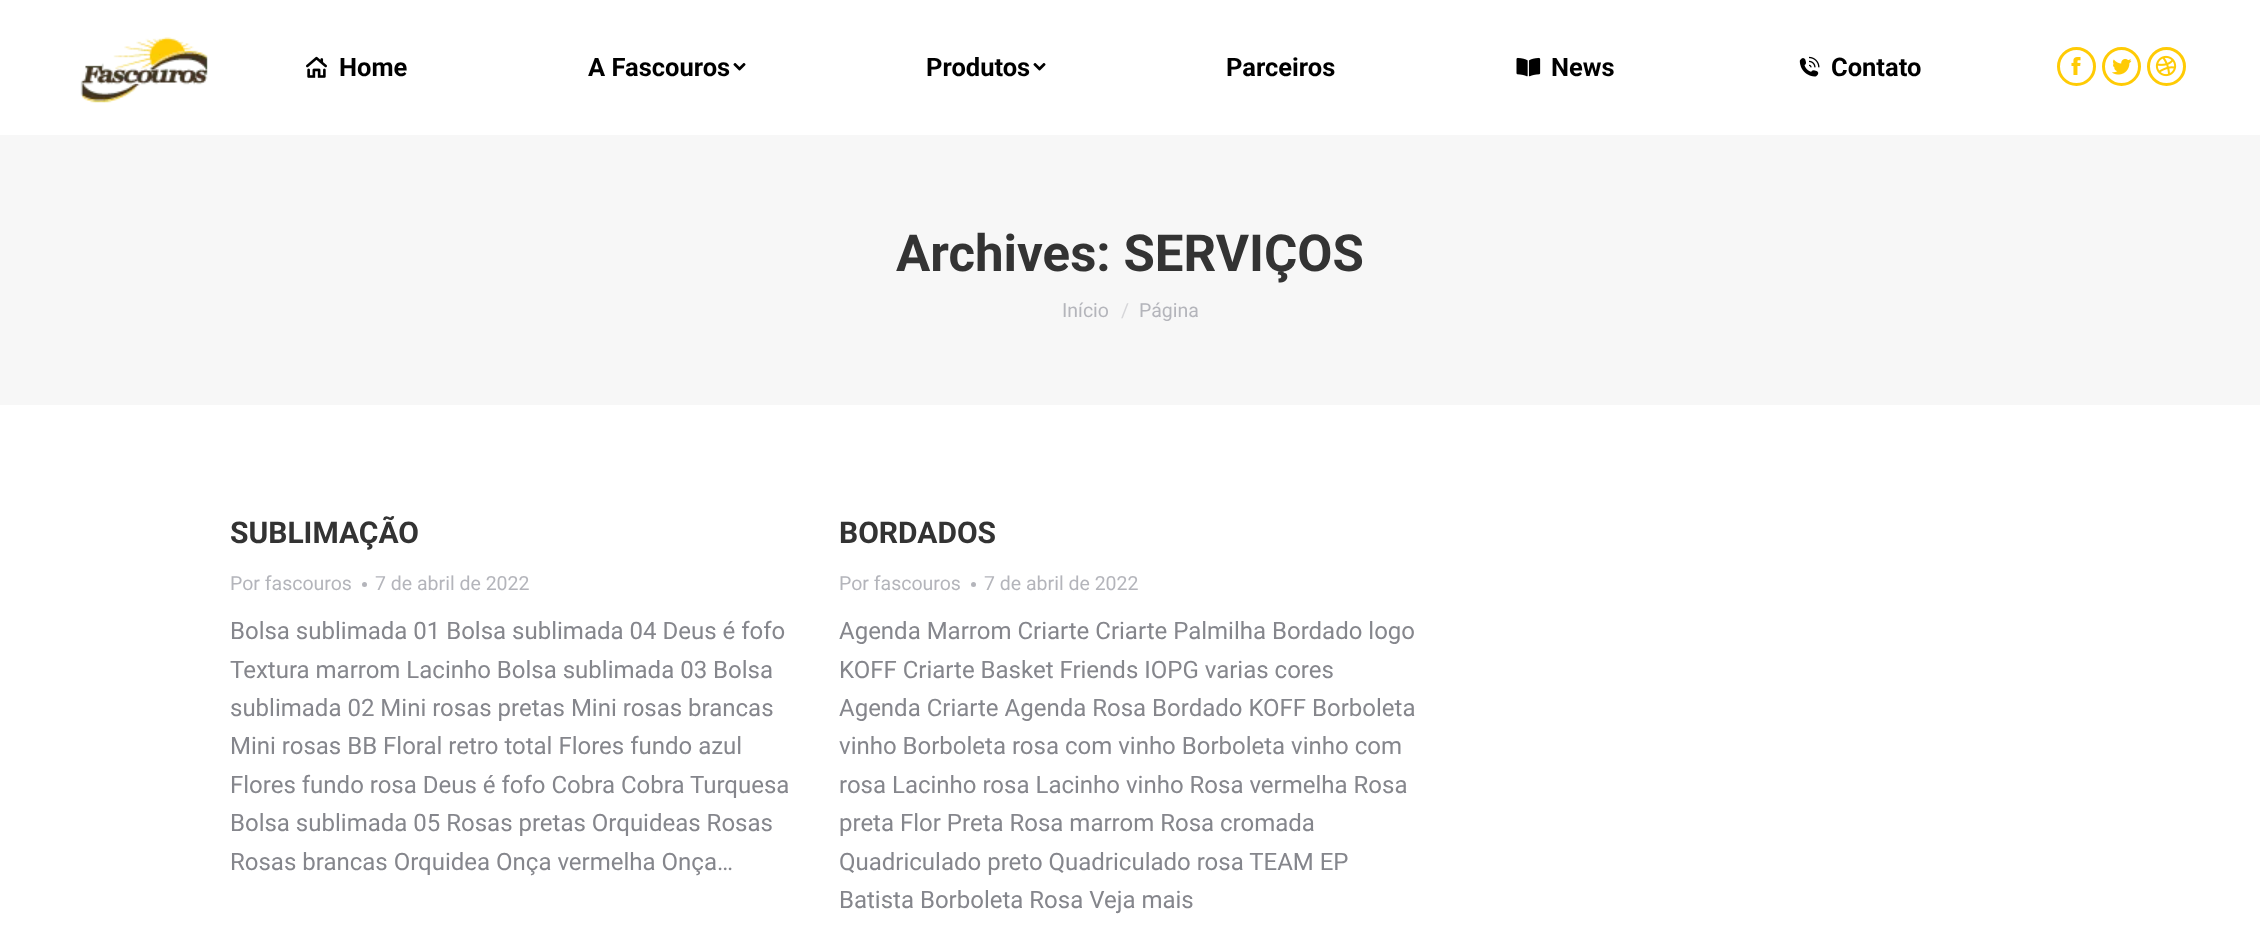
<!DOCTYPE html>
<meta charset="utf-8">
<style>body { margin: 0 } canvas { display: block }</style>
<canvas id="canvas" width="2260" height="937"></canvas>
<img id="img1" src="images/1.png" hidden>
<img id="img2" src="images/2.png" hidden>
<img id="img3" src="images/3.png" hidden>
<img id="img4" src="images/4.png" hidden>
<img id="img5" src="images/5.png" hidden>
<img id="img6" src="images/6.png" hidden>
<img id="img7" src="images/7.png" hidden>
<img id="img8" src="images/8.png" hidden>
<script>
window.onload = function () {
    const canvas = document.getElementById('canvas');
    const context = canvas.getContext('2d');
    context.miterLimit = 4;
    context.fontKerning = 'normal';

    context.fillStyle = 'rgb(255, 255, 255)';
    context.fillRect(0, 0, 2260, 937);
    context.drawImage(document.getElementById('img1'), 80, 37, 128, 66);
    context.drawImage(document.getElementById('img2'), 306, 56, 21, 22);
    context.drawImage(document.getElementById('img3'), 733, 63, 13, 8);
    context.drawImage(document.getElementById('img3'), 1033, 63, 13, 8);
    context.drawImage(document.getElementById('img4'), 1516, 57, 25, 20);
    context.drawImage(document.getElementById('img5'), 1799, 56, 21, 21);
    context.beginPath();
    context.arc(2076.5, 66.5, 18, 0, 2 * Math.PI);
    context.strokeStyle = 'rgb(255, 203, 5)';
    context.lineWidth = 3;
    context.stroke();
    context.drawImage(document.getElementById('img6'), 2071, 57, 10, 18);
    context.beginPath();
    context.arc(2121.5, 66.5, 18, 0, 2 * Math.PI);
    context.stroke();
    context.drawImage(document.getElementById('img7'), 2112, 58, 20, 17);
    context.beginPath();
    context.arc(2166.5, 66.5, 18, 0, 2 * Math.PI);
    context.stroke();
    context.drawImage(document.getElementById('img8'), 2155, 55, 22, 22);
    context.fillStyle = 'rgb(247, 247, 247)';
    context.fillRect(0, 135, 2260, 270);
    context.fillStyle = 'rgb(180, 181, 187)';
    context.beginPath();
    context.arc(364.5, 584.5, 2.5, 0, 2 * Math.PI);
    context.fill();
    context.beginPath();
    context.arc(973.5, 584.5, 2.5, 0, 2 * Math.PI);
    context.fill();
    context.font = 'bold 25.5px Roboto';
    context.fillStyle = 'rgb(0, 0, 0)';
    context.fillText('Home', 339, 76);
    context.fillText('A Fascouros', 588, 76);
    context.fillText('Produtos', 926, 76);
    context.fillText('Parceiros', 1226, 76);
    context.fillText('News', 1551, 76);
    context.fillText('Contato', 1831, 76);
    context.font = 'bold 51px Roboto';
    context.fillStyle = 'rgb(51, 51, 51)';
    context.fillText('Archives: SERVIÇOS', 896, 271);
    context.font = '19.5px Roboto';
    context.fillStyle = 'rgb(180, 181, 187)';
    context.fillText('Início', 1062, 317);
    context.fillStyle = 'rgb(214, 214, 217)';
    context.fillText('/', 1121, 317);
    context.fillStyle = 'rgb(180, 181, 187)';
    context.fillText('Página', 1139, 317);
    context.font = 'bold 30px Roboto';
    context.fillStyle = 'rgb(51, 51, 51)';
    context.fillText('SUBLIMAÇÃO', 230, 543);
    context.font = '19.5px Roboto';
    context.fillStyle = 'rgb(180, 181, 187)';
    context.fillText('Por fascouros', 230, 590);
    context.fillText('7 de abril de 2022', 375, 590);
    context.font = '24px Roboto';
    context.fillStyle = 'rgb(133, 134, 140)';
    context.fillText('Bolsa sublimada 01 Bolsa sublimada 04 Deus é fofo', 230, 639);
    context.fillText('Textura marrom Lacinho Bolsa sublimada 03 Bolsa', 230, 678);
    context.fillText('sublimada 02 Mini rosas pretas Mini rosas brancas', 230, 716);
    context.fillText('Mini rosas BB Floral retro total Flores fundo azul', 230, 754);
    context.fillText('Flores fundo rosa Deus é fofo Cobra Cobra Turquesa', 230, 793);
    context.fillText('Bolsa sublimada 05 Rosas pretas Orquideas Rosas', 230, 831);
    context.fillText('Rosas brancas Orquidea Onça vermelha Onça…', 230, 870);
    context.font = 'bold 30px Roboto';
    context.fillStyle = 'rgb(51, 51, 51)';
    context.fillText('BORDADOS', 839, 543);
    context.font = '19.5px Roboto';
    context.fillStyle = 'rgb(180, 181, 187)';
    context.fillText('Por fascouros', 839, 590);
    context.fillText('7 de abril de 2022', 984, 590);
    context.font = '24px Roboto';
    context.fillStyle = 'rgb(133, 134, 140)';
    context.fillText('Agenda Marrom Criarte Criarte Palmilha Bordado logo', 839, 639);
    context.fillText('KOFF Criarte Basket Friends IOPG varias cores', 839, 678);
    context.fillText('Agenda Criarte Agenda Rosa Bordado KOFF Borboleta', 839, 716);
    context.fillText('vinho Borboleta rosa com vinho Borboleta vinho com', 839, 754);
    context.fillText('rosa Lacinho rosa Lacinho vinho Rosa vermelha Rosa', 839, 793);
    context.fillText('preta Flor Preta Rosa marrom Rosa cromada', 839, 831);
    context.fillText('Quadriculado preto Quadriculado rosa TEAM EP', 839, 870);
    context.fillText('Batista Borboleta Rosa Veja mais', 839, 908);
};
</script>
